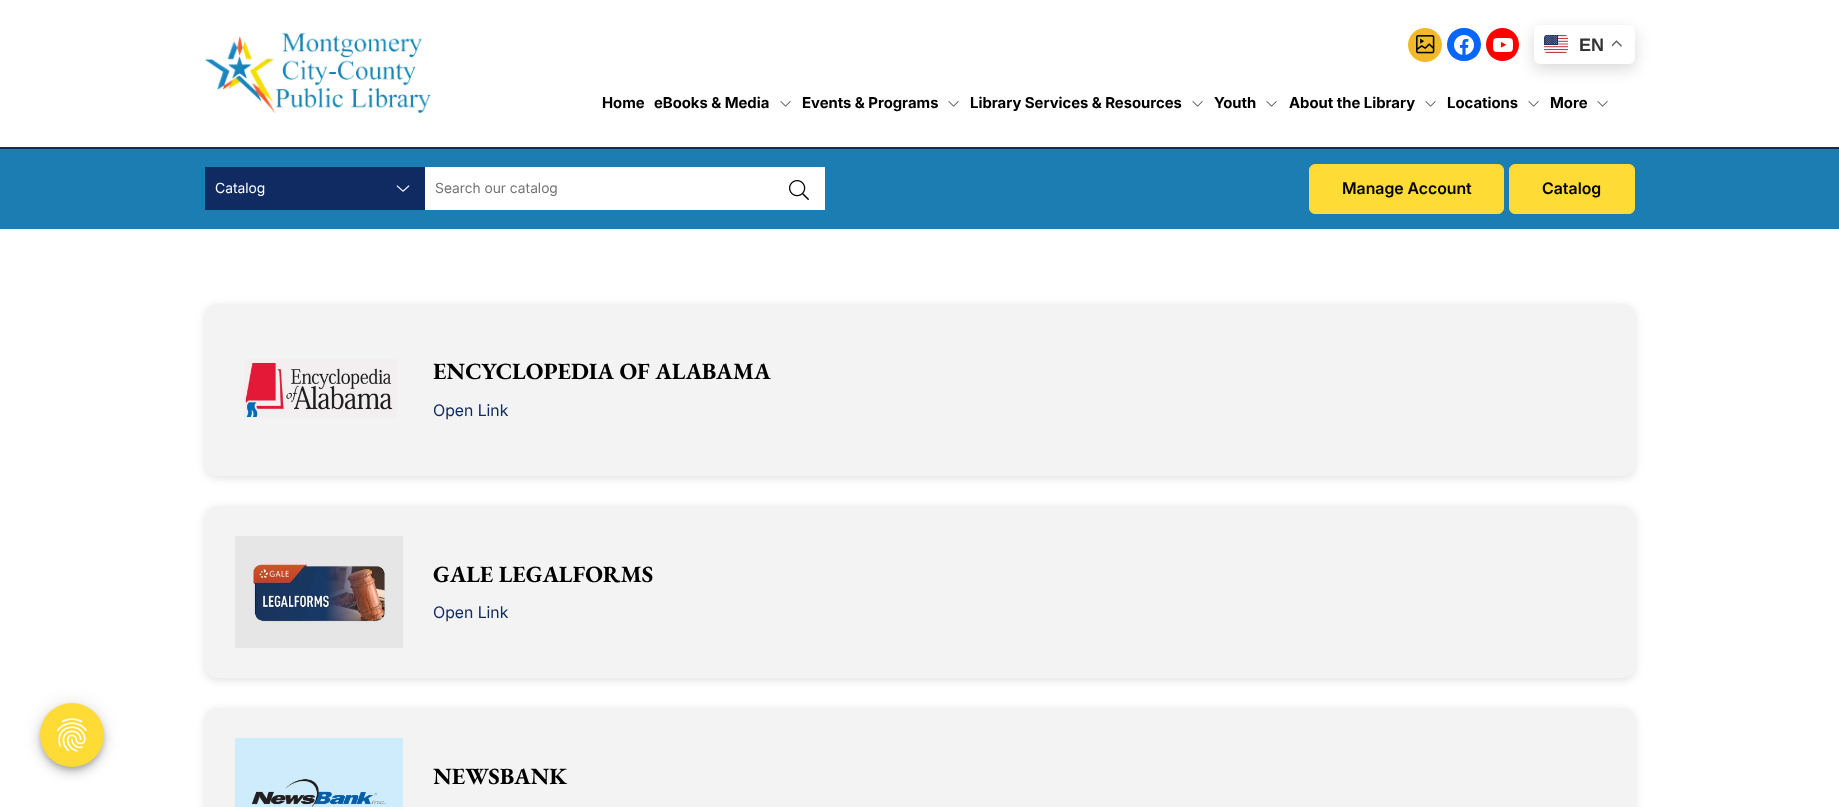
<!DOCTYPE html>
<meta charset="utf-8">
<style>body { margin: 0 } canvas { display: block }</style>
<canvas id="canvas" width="1839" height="807"></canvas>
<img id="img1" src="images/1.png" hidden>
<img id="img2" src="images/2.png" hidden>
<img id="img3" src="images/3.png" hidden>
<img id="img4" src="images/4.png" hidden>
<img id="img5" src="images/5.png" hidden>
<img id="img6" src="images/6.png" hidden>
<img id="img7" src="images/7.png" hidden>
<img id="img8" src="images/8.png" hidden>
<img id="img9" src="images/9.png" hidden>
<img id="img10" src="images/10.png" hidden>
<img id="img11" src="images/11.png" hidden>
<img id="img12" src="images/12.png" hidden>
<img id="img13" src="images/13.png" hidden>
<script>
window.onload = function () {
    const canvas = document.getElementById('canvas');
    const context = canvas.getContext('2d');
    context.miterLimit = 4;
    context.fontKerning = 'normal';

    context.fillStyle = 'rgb(255, 255, 255)';
    context.fillRect(0, 0, 1839, 807);
    context.fillStyle = 'rgb(16, 43, 98)';
    context.fillRect(0, 147, 1839, 2);
    context.drawImage(document.getElementById('img1'), 205, 33, 226, 80);
    context.fillStyle = 'rgb(242, 185, 43)';
    context.beginPath();
    context.arc(1425, 45, 17, 0, 2 * Math.PI);
    context.fill();
    context.drawImage(document.getElementById('img2'), 1416, 35, 19, 19);
    context.fillStyle = 'rgb(8, 102, 255)';
    context.beginPath();
    context.roundRect(1447, 28, 34, 33, 16.5);
    context.fill();
    context.drawImage(document.getElementById('img3'), 1454, 35, 20, 20);
    context.fillStyle = 'rgb(255, 0, 0)';
    context.beginPath();
    context.arc(1502.5, 44.5, 16.5, 0, 2 * Math.PI);
    context.fill();
    context.drawImage(document.getElementById('img4'), 1493, 38, 20, 14);
    context.fillStyle = 'rgba(0, 0, 0, 0.15)';
    context.filter = 'blur(7.5px)';
    context.beginPath();
    context.roundRect(1534, 30, 101, 39, 6);
    context.fill();
    context.filter = 'none';
    context.fillStyle = 'rgb(255, 255, 255)';
    context.beginPath();
    context.roundRect(1534, 25, 101, 39, 6);
    context.fill();
    context.drawImage(document.getElementById('img5'), 1544, 35, 24, 18);
    context.drawImage(document.getElementById('img6'), 1612, 40, 10, 7);
    context.drawImage(document.getElementById('img7'), 780, 101, 11, 6);
    context.drawImage(document.getElementById('img7'), 948, 101, 11, 6);
    context.drawImage(document.getElementById('img7'), 1192, 101, 11, 6);
    context.drawImage(document.getElementById('img7'), 1266, 101, 11, 6);
    context.drawImage(document.getElementById('img7'), 1425, 101, 11, 6);
    context.drawImage(document.getElementById('img7'), 1528, 101, 11, 6);
    context.drawImage(document.getElementById('img7'), 1597, 101, 11, 6);
    context.fillStyle = 'rgb(27, 125, 177)';
    context.fillRect(0, 149, 1839, 80);
    context.fillStyle = 'rgb(16, 43, 98)';
    context.fillRect(205, 167, 220, 43);
    context.drawImage(document.getElementById('img8'), 396, 185, 14, 7);
    context.fillStyle = 'rgb(255, 255, 255)';
    context.fillRect(425, 167, 400, 43);
    context.drawImage(document.getElementById('img9'), 789, 180, 20, 20);
    context.fillStyle = 'rgb(255, 219, 53)';
    context.beginPath();
    context.roundRect(1309.5, 164.5, 194, 49, 5.5);
    context.fill();
    context.strokeStyle = 'rgb(255, 219, 53)';
    context.stroke();
    context.beginPath();
    context.roundRect(1509.5, 164.5, 125, 49, 5.5);
    context.fill();
    context.stroke();
    context.fillStyle = 'rgba(0, 0, 0, 0.12)';
    context.filter = 'blur(9px)';
    context.beginPath();
    context.roundRect(40, 704, 64, 64, 32);
    context.fill();
    context.filter = 'none';
    context.fillStyle = 'rgba(0, 0, 0, 0.14)';
    context.filter = 'blur(5px)';
    context.beginPath();
    context.roundRect(40, 709, 64, 64, 32);
    context.fill();
    context.filter = 'none';
    context.fillStyle = 'rgba(0, 0, 0, 0.2)';
    context.filter = 'blur(2.5px)';
    context.beginPath();
    context.roundRect(41, 707, 62, 62, 31);
    context.fill();
    context.filter = 'none';
    context.fillStyle = 'rgb(255, 219, 53)';
    context.beginPath();
    context.arc(72, 735, 32, 0, 2 * Math.PI);
    context.fill();
    context.drawImage(document.getElementById('img10'), 57, 718, 30, 34);
    context.fillStyle = 'rgba(99, 99, 99, 0.2)';
    context.filter = 'blur(4px)';
    context.beginPath();
    context.roundRect(205, 306, 1430, 172, 12);
    context.fill();
    context.filter = 'none';
    context.fillStyle = 'rgb(243, 243, 243)';
    context.beginPath();
    context.roundRect(205, 304, 1430, 172, 12);
    context.fill();
    context.drawImage(document.getElementById('img11'), 244, 359, 153, 59);
    context.fillStyle = 'rgba(99, 99, 99, 0.2)';
    context.filter = 'blur(4px)';
    context.beginPath();
    context.roundRect(205, 508, 1430, 172, 12);
    context.fill();
    context.filter = 'none';
    context.fillStyle = 'rgb(243, 243, 243)';
    context.beginPath();
    context.roundRect(205, 506, 1430, 172, 12);
    context.fill();
    context.drawImage(document.getElementById('img12'), 235, 536, 168, 112);
    context.fillStyle = 'rgba(99, 99, 99, 0.2)';
    context.filter = 'blur(4px)';
    context.beginPath();
    context.roundRect(205, 710, 1430, 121, 12);
    context.fill();
    context.filter = 'none';
    context.fillStyle = 'rgb(243, 243, 243)';
    context.beginPath();
    context.roundRect(205, 708, 1430, 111, 12);
    context.fill();
    context.drawImage(document.getElementById('img13'), 235, 738, 168, 69);
    context.font = 'bold 18px Liberation Sans';
    context.fillStyle = 'rgb(51, 51, 51)';
    context.fillText('EN', 1579, 51);
    context.font = 'bold 15px Inter';
    context.fillStyle = 'rgb(0, 0, 0)';
    context.fillText('Home', 602, 108);
    context.fillText('eBooks & Media', 654, 108);
    context.fillText('Events & Programs', 802, 108);
    context.fillText('Library Services & Resources', 970, 108);
    context.fillText('Youth', 1214, 108);
    context.fillText('About the Library', 1289, 108);
    context.fillText('Locations', 1447, 108);
    context.fillText('More', 1550, 108);
    context.font = '14px Inter';
    context.fillStyle = 'rgb(255, 255, 255)';
    context.fillText('Catalog', 215, 193);
    context.fillStyle = 'rgb(117, 117, 117)';
    context.fillText('Search our catalog', 435, 193);
    context.font = '600 16px Inter';
    context.fillStyle = 'rgb(0, 0, 0)';
    context.fillText('Manage Account', 1342, 194);
    context.fillText('Catalog', 1542, 194);
    context.font = 'bold 23.25px EB Garamond';
    context.fillText('ENCYCLOPEDIA OF ALABAMA', 433, 379);
    context.font = '16px Inter';
    context.fillStyle = 'rgb(16, 43, 98)';
    context.fillText('Open Link', 433, 416);
    context.font = 'bold 23.25px EB Garamond';
    context.fillStyle = 'rgb(0, 0, 0)';
    context.fillText('GALE LEGALFORMS', 433, 582);
    context.font = '16px Inter';
    context.fillStyle = 'rgb(16, 43, 98)';
    context.fillText('Open Link', 433, 618);
    context.font = 'bold 23.25px EB Garamond';
    context.fillStyle = 'rgb(0, 0, 0)';
    context.fillText('NEWSBANK', 433, 784);
};
</script>
